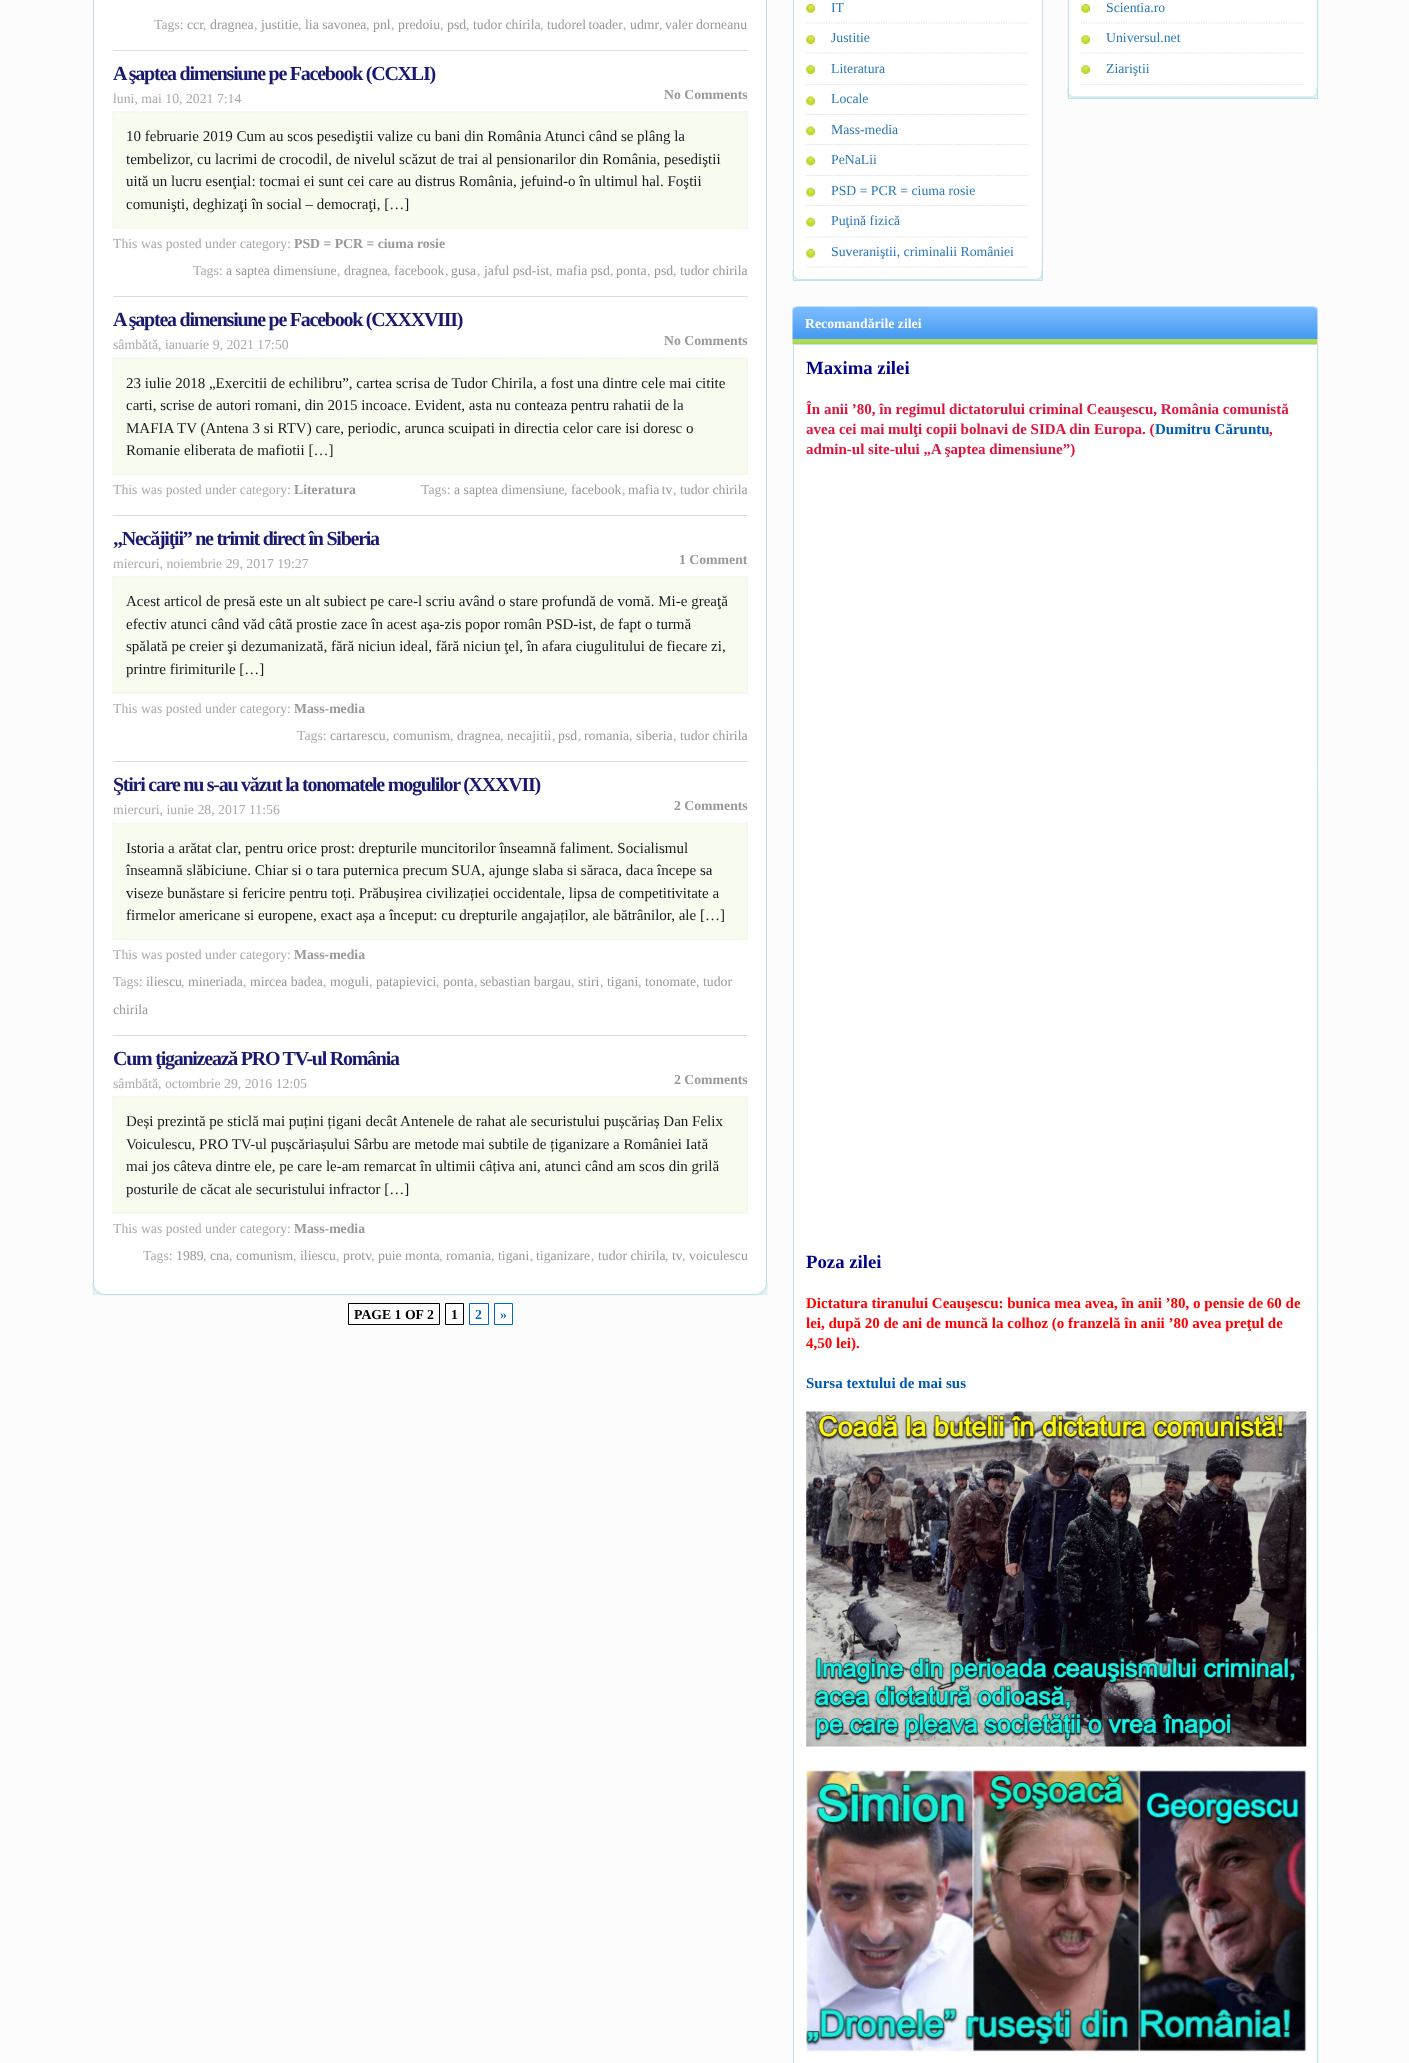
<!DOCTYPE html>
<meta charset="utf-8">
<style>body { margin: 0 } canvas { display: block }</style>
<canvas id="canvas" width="1409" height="2063"></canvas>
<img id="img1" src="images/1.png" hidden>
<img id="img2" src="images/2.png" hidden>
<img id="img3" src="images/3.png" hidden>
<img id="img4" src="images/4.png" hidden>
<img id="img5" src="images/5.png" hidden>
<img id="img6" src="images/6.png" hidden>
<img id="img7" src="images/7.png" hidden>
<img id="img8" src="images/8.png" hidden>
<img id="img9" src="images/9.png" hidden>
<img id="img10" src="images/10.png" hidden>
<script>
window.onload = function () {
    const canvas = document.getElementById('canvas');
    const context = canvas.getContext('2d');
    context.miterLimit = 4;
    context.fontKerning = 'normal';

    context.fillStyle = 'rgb(252, 252, 253)';
    context.fillRect(0, 0, 1409, 2063);
    context.fillStyle = 'rgb(255, 255, 255)';
    context.fillRect(94, 0, 674, 1283);
    context.fillStyle = 'rgb(189, 219, 230)';
    context.fillRect(766, 0, 1, 1283);
    context.fillRect(93, 0, 1, 1283);
    context.fillStyle = 'rgb(221, 221, 221)';
    context.fillRect(113, 50, 635, 1);
    context.fillStyle = 'rgb(248, 252, 239)';
    context.fillRect(113, 111, 635, 118);
    context.beginPath();
    context.moveTo(112.5, 112);
    context.lineTo(747.5, 112);
    context.strokeStyle = 'rgb(238, 238, 238)';
    context.lineWidth = 1.2;
    context.setLineDash([1.25, 1.25]);
    context.stroke();
    context.beginPath();
    context.moveTo(747, 111);
    context.lineTo(747, 229);
    context.stroke();
    context.beginPath();
    context.moveTo(112.5, 228);
    context.lineTo(747.5, 228);
    context.stroke();
    context.beginPath();
    context.moveTo(113, 111);
    context.lineTo(113, 229);
    context.stroke();
    context.fillStyle = 'rgb(221, 221, 221)';
    context.fillRect(113, 296, 635, 1);
    context.fillStyle = 'rgb(248, 252, 239)';
    context.fillRect(113, 358, 635, 117);
    context.beginPath();
    context.moveTo(112.5, 358);
    context.lineTo(747.5, 358);
    context.stroke();
    context.beginPath();
    context.moveTo(747, 357.5);
    context.lineTo(747, 475);
    context.stroke();
    context.beginPath();
    context.moveTo(112.5, 474.5);
    context.lineTo(747.5, 474.5);
    context.stroke();
    context.beginPath();
    context.moveTo(113, 357.5);
    context.lineTo(113, 475);
    context.stroke();
    context.fillStyle = 'rgb(221, 221, 221)';
    context.fillRect(113, 515, 635, 1);
    context.fillStyle = 'rgb(248, 252, 239)';
    context.fillRect(113, 576, 635, 118);
    context.beginPath();
    context.moveTo(112.5, 577);
    context.lineTo(747.5, 577);
    context.stroke();
    context.beginPath();
    context.moveTo(747, 576);
    context.lineTo(747, 694);
    context.stroke();
    context.beginPath();
    context.moveTo(112.5, 693);
    context.lineTo(747.5, 693);
    context.stroke();
    context.beginPath();
    context.moveTo(113, 576);
    context.lineTo(113, 694);
    context.stroke();
    context.fillStyle = 'rgb(221, 221, 221)';
    context.fillRect(113, 761, 635, 1);
    context.fillStyle = 'rgb(248, 252, 239)';
    context.fillRect(113, 823, 635, 117);
    context.beginPath();
    context.moveTo(112.5, 823);
    context.lineTo(747.5, 823);
    context.stroke();
    context.beginPath();
    context.moveTo(747, 822.5);
    context.lineTo(747, 940);
    context.stroke();
    context.beginPath();
    context.moveTo(112.5, 939.5);
    context.lineTo(747.5, 939.5);
    context.stroke();
    context.beginPath();
    context.moveTo(113, 822.5);
    context.lineTo(113, 940);
    context.stroke();
    context.fillStyle = 'rgb(221, 221, 221)';
    context.fillRect(113, 1035, 635, 1);
    context.fillStyle = 'rgb(248, 252, 239)';
    context.fillRect(113, 1096, 635, 118);
    context.beginPath();
    context.moveTo(112.5, 1097);
    context.lineTo(747.5, 1097);
    context.stroke();
    context.beginPath();
    context.moveTo(747, 1096);
    context.lineTo(747, 1214);
    context.stroke();
    context.beginPath();
    context.moveTo(112.5, 1213);
    context.lineTo(747.5, 1213);
    context.stroke();
    context.beginPath();
    context.moveTo(113, 1096);
    context.lineTo(113, 1214);
    context.stroke();
    context.drawImage(document.getElementById('img1'), 92, 1282, 676, 14);
    context.fillStyle = 'rgb(255, 255, 255)';
    context.beginPath();
    context.rect(348.5, 1303.5, 91, 21);
    context.fill();
    context.strokeStyle = 'rgb(0, 0, 0)';
    context.lineWidth = 1;
    context.setLineDash([]);
    context.stroke();
    context.beginPath();
    context.rect(445.5, 1303.5, 18, 21);
    context.fill();
    context.stroke();
    context.beginPath();
    context.rect(469.5, 1303.5, 19, 21);
    context.fill();
    context.strokeStyle = 'rgb(0, 102, 204)';
    context.stroke();
    context.beginPath();
    context.rect(494.5, 1303.5, 18, 21);
    context.fill();
    context.stroke();
    context.fillRect(794, 0, 248, 271);
    context.drawImage(document.getElementById('img2'), 792, 270, 250, 11);
    context.strokeStyle = 'rgb(191, 227, 235)';
    context.strokeRect(793.5, -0.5, 249, 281);
    context.drawImage(document.getElementById('img3'), 806, 4, 9, 9);
    context.beginPath();
    context.moveTo(806, 23);
    context.lineTo(1029, 23);
    context.strokeStyle = 'rgb(221, 221, 221)';
    context.lineWidth = 1.2;
    context.setLineDash([1.25, 1.25]);
    context.stroke();
    context.drawImage(document.getElementById('img4'), 806, 35, 9, 9);
    context.beginPath();
    context.moveTo(806, 53);
    context.lineTo(1029, 53);
    context.stroke();
    context.drawImage(document.getElementById('img4'), 806, 65, 9, 9);
    context.beginPath();
    context.moveTo(806, 84.5);
    context.lineTo(1029, 84.5);
    context.stroke();
    context.drawImage(document.getElementById('img5'), 806, 96, 9, 10);
    context.beginPath();
    context.moveTo(806, 114.5);
    context.lineTo(1029, 114.5);
    context.stroke();
    context.drawImage(document.getElementById('img5'), 806, 126, 9, 10);
    context.beginPath();
    context.moveTo(806, 144.5);
    context.lineTo(1029, 144.5);
    context.stroke();
    context.drawImage(document.getElementById('img5'), 806, 156, 9, 10);
    context.beginPath();
    context.moveTo(806, 175.5);
    context.lineTo(1029, 175.5);
    context.stroke();
    context.drawImage(document.getElementById('img6'), 806, 187, 9, 10);
    context.beginPath();
    context.moveTo(806, 205.5);
    context.lineTo(1029, 205.5);
    context.stroke();
    context.drawImage(document.getElementById('img6'), 806, 217, 9, 10);
    context.beginPath();
    context.moveTo(806, 237);
    context.lineTo(1029, 237);
    context.stroke();
    context.drawImage(document.getElementById('img3'), 806, 249, 9, 9);
    context.beginPath();
    context.moveTo(806, 267);
    context.lineTo(1029, 267);
    context.stroke();
    context.fillRect(1069, 0, 248, 98);
    context.drawImage(document.getElementById('img7'), 1067, 87, 250, 11);
    context.strokeStyle = 'rgb(191, 227, 235)';
    context.lineWidth = 1;
    context.setLineDash([]);
    context.strokeRect(1068.5, -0.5, 249, 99);
    context.drawImage(document.getElementById('img3'), 1081, 4, 9, 9);
    context.beginPath();
    context.moveTo(1081, 23);
    context.lineTo(1304, 23);
    context.strokeStyle = 'rgb(221, 221, 221)';
    context.lineWidth = 1.2;
    context.setLineDash([1.25, 1.25]);
    context.stroke();
    context.drawImage(document.getElementById('img4'), 1081, 35, 9, 9);
    context.beginPath();
    context.moveTo(1081, 53);
    context.lineTo(1304, 53);
    context.stroke();
    context.drawImage(document.getElementById('img4'), 1081, 65, 9, 9);
    context.beginPath();
    context.moveTo(1081, 84.5);
    context.lineTo(1304, 84.5);
    context.stroke();
    context.drawImage(document.getElementById('img8'), 792, 306, 526, 38);
    context.beginPath();
    context.rect(793.5, 344.5, 524, 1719);
    context.fill();
    context.strokeStyle = 'rgb(191, 227, 235)';
    context.lineWidth = 1;
    context.setLineDash([]);
    context.stroke();
    context.drawImage(document.getElementById('img9'), 806, 1411, 501, 336);
    context.drawImage(document.getElementById('img10'), 806, 1770, 501, 282);
    context.font = '13.75px Liberation Serif';
    context.fillStyle = 'rgb(170, 170, 170)';
    context.fillText('Tags:', 154, 29);
    context.fillStyle = 'rgb(153, 153, 153)';
    context.fillText('ccr', 187, 29);
    context.fillStyle = 'rgb(170, 170, 170)';
    context.fillText(',', 203, 29);
    context.fillStyle = 'rgb(153, 153, 153)';
    context.fillText('dragnea', 210, 29);
    context.fillStyle = 'rgb(170, 170, 170)';
    context.fillText(',', 254, 29);
    context.fillStyle = 'rgb(153, 153, 153)';
    context.fillText('justitie', 261, 29);
    context.fillStyle = 'rgb(170, 170, 170)';
    context.fillText(',', 298, 29);
    context.fillStyle = 'rgb(153, 153, 153)';
    context.fillText('lia savonea', 305, 29);
    context.fillStyle = 'rgb(170, 170, 170)';
    context.fillText(',', 366, 29);
    context.fillStyle = 'rgb(153, 153, 153)';
    context.fillText('pnl', 373, 29);
    context.fillStyle = 'rgb(170, 170, 170)';
    context.fillText(',', 391, 29);
    context.fillStyle = 'rgb(153, 153, 153)';
    context.fillText('predoiu', 398, 29);
    context.fillStyle = 'rgb(170, 170, 170)';
    context.fillText(',', 440, 29);
    context.fillStyle = 'rgb(153, 153, 153)';
    context.fillText('psd', 447, 29);
    context.fillStyle = 'rgb(170, 170, 170)';
    context.fillText(',', 466, 29);
    context.fillStyle = 'rgb(153, 153, 153)';
    context.fillText('tudor chirila', 473, 29);
    context.fillStyle = 'rgb(170, 170, 170)';
    context.fillText(',', 540, 29);
    context.wordSpacing = '-1px';
    context.fillStyle = 'rgb(153, 153, 153)';
    context.fillText('tudorel toader', 547, 29);
    context.wordSpacing = '0px';
    context.fillStyle = 'rgb(170, 170, 170)';
    context.fillText(',', 623, 29);
    context.fillStyle = 'rgb(153, 153, 153)';
    context.fillText('udmr', 630, 29);
    context.fillStyle = 'rgb(170, 170, 170)';
    context.fillText(',', 659, 29);
    context.fillStyle = 'rgb(153, 153, 153)';
    context.fillText('valer dorneanu', 665, 29);
    context.letterSpacing = '-1.25px';
    context.font = 'bold 20px Liberation Serif';
    context.fillStyle = 'rgb(25, 25, 112)';
    context.fillText('A şaptea dimensiune pe Facebook (CCXLI)', 113, 80);
    context.letterSpacing = '0px';
    context.font = '13.75px Liberation Serif';
    context.fillStyle = 'rgb(170, 170, 170)';
    context.fillText('luni, mai 10, 2021 7:14', 113, 103);
    context.font = 'bold 13.75px Liberation Serif';
    context.fillStyle = 'rgb(153, 153, 153)';
    context.fillText('No Comments', 664, 99);
    context.font = '15px Liberation Serif';
    context.fillStyle = 'rgb(20, 27, 32)';
    context.fillText('10 februarie 2019 Cum au scos pesediştii valize cu bani din România Atunci când se plâng la', 126, 141);
    context.fillText('tembelizor, cu lacrimi de crocodil, de nivelul scăzut de trai al pensionarilor din România, pesediştii', 126, 164);
    context.fillText('uită un lucru esenţial: tocmai ei sunt cei care au distrus România, jefuind-o în ultimul hal. Foştii', 126, 186);
    context.fillText('comunişti, deghizaţi în social – democraţi, […]', 126, 209);
    context.font = '13.75px Liberation Serif';
    context.fillStyle = 'rgb(170, 170, 170)';
    context.fillText('This was posted under category:', 113, 248);
    context.font = 'bold 13.75px Liberation Serif';
    context.fillStyle = 'rgb(153, 153, 153)';
    context.fillText('PSD = PCR = ciuma rosie', 294, 248);
    context.font = '13.75px Liberation Serif';
    context.fillStyle = 'rgb(170, 170, 170)';
    context.fillText('Tags:', 193, 275);
    context.fillStyle = 'rgb(153, 153, 153)';
    context.fillText('a saptea dimensiune', 226, 275);
    context.fillStyle = 'rgb(170, 170, 170)';
    context.fillText(',', 337, 275);
    context.fillStyle = 'rgb(153, 153, 153)';
    context.fillText('dragnea', 344, 275);
    context.fillStyle = 'rgb(170, 170, 170)';
    context.fillText(',', 387, 275);
    context.fillStyle = 'rgb(153, 153, 153)';
    context.fillText('facebook', 394, 275);
    context.fillStyle = 'rgb(170, 170, 170)';
    context.fillText(',', 445, 275);
    context.fillStyle = 'rgb(153, 153, 153)';
    context.fillText('gusa', 451, 275);
    context.fillStyle = 'rgb(170, 170, 170)';
    context.fillText(',', 477, 275);
    context.fillStyle = 'rgb(153, 153, 153)';
    context.fillText('jaful psd-ist', 484, 275);
    context.fillStyle = 'rgb(170, 170, 170)';
    context.fillText(',', 549, 275);
    context.fillStyle = 'rgb(153, 153, 153)';
    context.fillText('mafia psd', 556, 275);
    context.fillStyle = 'rgb(170, 170, 170)';
    context.fillText(',', 610, 275);
    context.fillStyle = 'rgb(153, 153, 153)';
    context.fillText('ponta', 616, 275);
    context.fillStyle = 'rgb(170, 170, 170)';
    context.fillText(',', 647, 275);
    context.fillStyle = 'rgb(153, 153, 153)';
    context.fillText('psd', 654, 275);
    context.fillStyle = 'rgb(170, 170, 170)';
    context.fillText(',', 673, 275);
    context.fillStyle = 'rgb(153, 153, 153)';
    context.fillText('tudor chirila', 680, 275);
    context.letterSpacing = '-1.25px';
    context.font = 'bold 20px Liberation Serif';
    context.fillStyle = 'rgb(25, 25, 112)';
    context.fillText('A şaptea dimensiune pe Facebook (CXXXVIII)', 113, 326);
    context.letterSpacing = '0px';
    context.font = '13.75px Liberation Serif';
    context.fillStyle = 'rgb(170, 170, 170)';
    context.fillText('sâmbătă, ianuarie 9, 2021 17:50', 113, 349);
    context.font = 'bold 13.75px Liberation Serif';
    context.fillStyle = 'rgb(153, 153, 153)';
    context.fillText('No Comments', 664, 345);
    context.font = '15px Liberation Serif';
    context.fillStyle = 'rgb(20, 27, 32)';
    context.fillText('23 iulie 2018 „Exercitii de echilibru”, cartea scrisa de Tudor Chirila, a fost una dintre cele mai citite', 126, 388);
    context.fillText('carti, scrise de autori romani, din 2015 incoace. Evident, asta nu conteaza pentru rahatii de la', 126, 410);
    context.fillText('MAFIA TV (Antena 3 si RTV) care, periodic, arunca scuipati in directia celor care isi doresc o', 126, 433);
    context.fillText('Romanie eliberata de mafiotii […]', 126, 455);
    context.font = '13.75px Liberation Serif';
    context.fillStyle = 'rgb(170, 170, 170)';
    context.fillText('This was posted under category:', 113, 494);
    context.font = 'bold 13.75px Liberation Serif';
    context.fillStyle = 'rgb(153, 153, 153)';
    context.fillText('Literatura', 294, 494);
    context.font = '13.75px Liberation Serif';
    context.fillStyle = 'rgb(170, 170, 170)';
    context.fillText('Tags:', 421, 494);
    context.fillStyle = 'rgb(153, 153, 153)';
    context.fillText('a saptea dimensiune', 454, 494);
    context.fillStyle = 'rgb(170, 170, 170)';
    context.fillText(',', 564, 494);
    context.fillStyle = 'rgb(153, 153, 153)';
    context.fillText('facebook', 571, 494);
    context.fillStyle = 'rgb(170, 170, 170)';
    context.fillText(',', 622, 494);
    context.wordSpacing = '-1px';
    context.fillStyle = 'rgb(153, 153, 153)';
    context.fillText('mafia tv', 628, 494);
    context.wordSpacing = '0px';
    context.fillStyle = 'rgb(170, 170, 170)';
    context.fillText(',', 673, 494);
    context.fillStyle = 'rgb(153, 153, 153)';
    context.fillText('tudor chirila', 680, 494);
    context.letterSpacing = '-1.25px';
    context.font = 'bold 20px Liberation Serif';
    context.fillStyle = 'rgb(25, 25, 112)';
    context.fillText('„Necăjiţii” ne trimit direct în Siberia', 113, 545);
    context.letterSpacing = '0px';
    context.font = '13.75px Liberation Serif';
    context.fillStyle = 'rgb(170, 170, 170)';
    context.fillText('miercuri, noiembrie 29, 2017 19:27', 113, 568);
    context.font = 'bold 13.75px Liberation Serif';
    context.fillStyle = 'rgb(153, 153, 153)';
    context.fillText('1 Comment', 679, 564);
    context.font = '15px Liberation Serif';
    context.fillStyle = 'rgb(20, 27, 32)';
    context.fillText('Acest articol de presă este un alt subiect pe care-l scriu având o stare profundă de vomă. Mi-e greaţă', 126, 606);
    context.fillText('efectiv atunci când văd câtă prostie zace în acest aşa-zis popor român PSD-ist, de fapt o turmă', 126, 629);
    context.fillText('spălată pe creier şi dezumanizată, fără niciun ideal, fără niciun ţel, în afara ciugulitului de fiecare zi,', 126, 651);
    context.fillText('printre firimiturile […]', 126, 674);
    context.font = '13.75px Liberation Serif';
    context.fillStyle = 'rgb(170, 170, 170)';
    context.fillText('This was posted under category:', 113, 713);
    context.font = 'bold 13.75px Liberation Serif';
    context.fillStyle = 'rgb(153, 153, 153)';
    context.fillText('Mass-media', 294, 713);
    context.font = '13.75px Liberation Serif';
    context.fillStyle = 'rgb(170, 170, 170)';
    context.fillText('Tags:', 297, 740);
    context.fillStyle = 'rgb(153, 153, 153)';
    context.fillText('cartarescu', 330, 740);
    context.fillStyle = 'rgb(170, 170, 170)';
    context.fillText(',', 386, 740);
    context.fillStyle = 'rgb(153, 153, 153)';
    context.fillText('comunism', 393, 740);
    context.fillStyle = 'rgb(170, 170, 170)';
    context.fillText(',', 450, 740);
    context.fillStyle = 'rgb(153, 153, 153)';
    context.fillText('dragnea', 457, 740);
    context.fillStyle = 'rgb(170, 170, 170)';
    context.fillText(',', 500, 740);
    context.fillStyle = 'rgb(153, 153, 153)';
    context.fillText('necajitii', 507, 740);
    context.fillStyle = 'rgb(170, 170, 170)';
    context.fillText(',', 552, 740);
    context.fillStyle = 'rgb(153, 153, 153)';
    context.fillText('psd', 558, 740);
    context.fillStyle = 'rgb(170, 170, 170)';
    context.fillText(',', 578, 740);
    context.fillStyle = 'rgb(153, 153, 153)';
    context.fillText('romania', 584, 740);
    context.fillStyle = 'rgb(170, 170, 170)';
    context.fillText(',', 629, 740);
    context.fillStyle = 'rgb(153, 153, 153)';
    context.fillText('siberia', 636, 740);
    context.fillStyle = 'rgb(170, 170, 170)';
    context.fillText(',', 673, 740);
    context.fillStyle = 'rgb(153, 153, 153)';
    context.fillText('tudor chirila', 680, 740);
    context.letterSpacing = '-1.25px';
    context.font = 'bold 20px Liberation Serif';
    context.fillStyle = 'rgb(25, 25, 112)';
    context.fillText('Ştiri care nu s-au văzut la tonomatele mogulilor (XXXVII)', 113, 791);
    context.letterSpacing = '0px';
    context.font = '13.75px Liberation Serif';
    context.fillStyle = 'rgb(170, 170, 170)';
    context.fillText('miercuri, iunie 28, 2017 11:56', 113, 814);
    context.font = 'bold 13.75px Liberation Serif';
    context.fillStyle = 'rgb(153, 153, 153)';
    context.fillText('2 Comments', 674, 810);
    context.font = '15px Liberation Serif';
    context.fillStyle = 'rgb(20, 27, 32)';
    context.fillText('Istoria a arătat clar, pentru orice prost: drepturile muncitorilor înseamnă faliment. Socialismul', 126, 853);
    context.fillText('înseamnă slăbiciune. Chiar si o tara puternica precum SUA, ajunge slaba si săraca, daca începe sa', 126, 875);
    context.fillText('viseze bunăstare si fericire pentru toți. Prăbușirea civilizației occidentale, lipsa de competitivitate a', 126, 898);
    context.fillText('firmelor americane si europene, exact așa a început: cu drepturile angajaților, ale bătrânilor, ale […]', 126, 920);
    context.font = '13.75px Liberation Serif';
    context.fillStyle = 'rgb(170, 170, 170)';
    context.fillText('This was posted under category:', 113, 959);
    context.font = 'bold 13.75px Liberation Serif';
    context.fillStyle = 'rgb(153, 153, 153)';
    context.fillText('Mass-media', 294, 959);
    context.font = '13.75px Liberation Serif';
    context.fillStyle = 'rgb(170, 170, 170)';
    context.fillText('Tags:', 113, 986);
    context.fillStyle = 'rgb(153, 153, 153)';
    context.fillText('iliescu', 146, 986);
    context.fillStyle = 'rgb(170, 170, 170)';
    context.fillText(',', 181, 986);
    context.fillStyle = 'rgb(153, 153, 153)';
    context.fillText('mineriada', 188, 986);
    context.fillStyle = 'rgb(170, 170, 170)';
    context.fillText(',', 243, 986);
    context.fillStyle = 'rgb(153, 153, 153)';
    context.fillText('mircea badea', 250, 986);
    context.fillStyle = 'rgb(170, 170, 170)';
    context.fillText(',', 323, 986);
    context.fillStyle = 'rgb(153, 153, 153)';
    context.fillText('moguli', 330, 986);
    context.fillStyle = 'rgb(170, 170, 170)';
    context.fillText(',', 369, 986);
    context.fillStyle = 'rgb(153, 153, 153)';
    context.fillText('patapievici', 376, 986);
    context.fillStyle = 'rgb(170, 170, 170)';
    context.fillText(',', 436, 986);
    context.fillStyle = 'rgb(153, 153, 153)';
    context.fillText('ponta', 443, 986);
    context.fillStyle = 'rgb(170, 170, 170)';
    context.fillText(',', 474, 986);
    context.fillStyle = 'rgb(153, 153, 153)';
    context.fillText('sebastian bargau', 480, 986);
    context.fillStyle = 'rgb(170, 170, 170)';
    context.fillText(',', 571, 986);
    context.fillStyle = 'rgb(153, 153, 153)';
    context.fillText('stiri', 578, 986);
    context.fillStyle = 'rgb(170, 170, 170)';
    context.fillText(',', 600, 986);
    context.fillStyle = 'rgb(153, 153, 153)';
    context.fillText('tigani', 607, 986);
    context.fillStyle = 'rgb(170, 170, 170)';
    context.fillText(',', 638, 986);
    context.fillStyle = 'rgb(153, 153, 153)';
    context.fillText('tonomate', 645, 986);
    context.fillStyle = 'rgb(170, 170, 170)';
    context.fillText(',', 696, 986);
    context.fillStyle = 'rgb(153, 153, 153)';
    context.fillText('tudor', 703, 986);
    context.fillText('chirila', 113, 1014);
    context.letterSpacing = '-1.25px';
    context.font = 'bold 20px Liberation Serif';
    context.fillStyle = 'rgb(25, 25, 112)';
    context.fillText('Cum ţiganizează PRO TV-ul România', 113, 1065);
    context.letterSpacing = '0px';
    context.font = '13.75px Liberation Serif';
    context.fillStyle = 'rgb(170, 170, 170)';
    context.fillText('sâmbătă, octombrie 29, 2016 12:05', 113, 1088);
    context.font = 'bold 13.75px Liberation Serif';
    context.fillStyle = 'rgb(153, 153, 153)';
    context.fillText('2 Comments', 674, 1084);
    context.font = '15px Liberation Serif';
    context.fillStyle = 'rgb(20, 27, 32)';
    context.fillText('Deși prezintă pe sticlă mai puțini țigani decât Antenele de rahat ale securistului pușcăriaș Dan Felix', 126, 1126);
    context.fillText('Voiculescu, PRO TV-ul pușcăriașului Sârbu are metode mai subtile de țiganizare a României Iată', 126, 1149);
    context.fillText('mai jos câteva dintre ele, pe care le-am remarcat în ultimii câțiva ani, atunci când am scos din grilă', 126, 1171);
    context.fillText('posturile de căcat ale securistului infractor […]', 126, 1194);
    context.font = '13.75px Liberation Serif';
    context.fillStyle = 'rgb(170, 170, 170)';
    context.fillText('This was posted under category:', 113, 1233);
    context.font = 'bold 13.75px Liberation Serif';
    context.fillStyle = 'rgb(153, 153, 153)';
    context.fillText('Mass-media', 294, 1233);
    context.font = '13.75px Liberation Serif';
    context.fillStyle = 'rgb(170, 170, 170)';
    context.fillText('Tags:', 143, 1260);
    context.fillStyle = 'rgb(153, 153, 153)';
    context.fillText('1989', 176, 1260);
    context.fillStyle = 'rgb(170, 170, 170)';
    context.fillText(',', 203, 1260);
    context.fillStyle = 'rgb(153, 153, 153)';
    context.fillText('cna', 210, 1260);
    context.fillStyle = 'rgb(170, 170, 170)';
    context.fillText(',', 229, 1260);
    context.fillStyle = 'rgb(153, 153, 153)';
    context.fillText('comunism', 236, 1260);
    context.fillStyle = 'rgb(170, 170, 170)';
    context.fillText(',', 293, 1260);
    context.fillStyle = 'rgb(153, 153, 153)';
    context.fillText('iliescu', 300, 1260);
    context.fillStyle = 'rgb(170, 170, 170)';
    context.fillText(',', 336, 1260);
    context.fillStyle = 'rgb(153, 153, 153)';
    context.fillText('protv', 343, 1260);
    context.fillStyle = 'rgb(170, 170, 170)';
    context.fillText(',', 371, 1260);
    context.fillStyle = 'rgb(153, 153, 153)';
    context.fillText('puie monta', 378, 1260);
    context.fillStyle = 'rgb(170, 170, 170)';
    context.fillText(',', 439, 1260);
    context.fillStyle = 'rgb(153, 153, 153)';
    context.fillText('romania', 446, 1260);
    context.fillStyle = 'rgb(170, 170, 170)';
    context.fillText(',', 491, 1260);
    context.fillStyle = 'rgb(153, 153, 153)';
    context.fillText('tigani', 498, 1260);
    context.fillStyle = 'rgb(170, 170, 170)';
    context.fillText(',', 530, 1260);
    context.fillStyle = 'rgb(153, 153, 153)';
    context.fillText('tiganizare', 536, 1260);
    context.fillStyle = 'rgb(170, 170, 170)';
    context.fillText(',', 591, 1260);
    context.fillStyle = 'rgb(153, 153, 153)';
    context.fillText('tudor chirila', 598, 1260);
    context.fillStyle = 'rgb(170, 170, 170)';
    context.fillText(',', 665, 1260);
    context.fillStyle = 'rgb(153, 153, 153)';
    context.fillText('tv', 672, 1260);
    context.fillStyle = 'rgb(170, 170, 170)';
    context.fillText(',', 682, 1260);
    context.fillStyle = 'rgb(153, 153, 153)';
    context.fillText('voiculescu', 689, 1260);
    context.font = 'bold 13.75px Liberation Serif';
    context.fillStyle = 'rgb(0, 0, 0)';
    context.fillText('PAGE 1 OF 2', 354, 1319);
    context.fillText('1', 451, 1319);
    context.fillStyle = 'rgb(0, 102, 204)';
    context.fillText('2', 475, 1319);
    context.fillText('»', 500, 1319);
    context.font = '13.75px Liberation Serif';
    context.fillStyle = 'rgb(44, 120, 185)';
    context.fillText('IT', 831, 12);
    context.fillText('Justitie', 831, 42);
    context.fillText('Literatura', 831, 73);
    context.fillText('Locale', 831, 103);
    context.fillText('Mass-media', 831, 134);
    context.fillText('PeNaLii', 831, 164);
    context.fillText('PSD = PCR = ciuma rosie', 831, 195);
    context.fillText('Puţină fizică', 831, 225);
    context.fillText('Suveraniştii, criminalii României', 831, 256);
    context.fillText('Scientia.ro', 1106, 12);
    context.fillText('Universul.net', 1106, 42);
    context.fillText('Ziariştii', 1106, 73);
    context.font = 'bold 13.75px Liberation Serif';
    context.fillStyle = 'rgb(255, 255, 255)';
    context.fillText('Recomandările zilei', 805, 328);
    context.font = 'bold 18.75px Liberation Serif';
    context.fillStyle = 'rgb(0, 0, 139)';
    context.fillText('Maxima zilei', 806, 374);
    context.font = 'bold 15px Liberation Serif';
    context.fillStyle = 'rgb(220, 20, 60)';
    context.fillText('În anii ’80, în regimul dictatorului criminal Ceauşescu, România comunistă', 806, 414);
    context.fillText('avea cei mai mulţi copii bolnavi de SIDA din Europa. (', 806, 434);
    context.fillStyle = 'rgb(0, 89, 179)';
    context.fillText('Dumitru Căruntu', 1155, 434);
    context.fillStyle = 'rgb(220, 20, 60)';
    context.fillText(',', 1269, 434);
    context.fillText('admin-ul site-ului „A şaptea dimensiune”)', 806, 454);
    context.font = 'bold 18.75px Liberation Serif';
    context.fillStyle = 'rgb(0, 0, 139)';
    context.fillText('Poza zilei', 806, 1268);
    context.font = 'bold 15px Liberation Serif';
    context.fillStyle = 'rgb(255, 0, 0)';
    context.fillText('Dictatura tiranului Ceauşescu: bunica mea avea, în anii ’80, o pensie de 60 de', 806, 1308);
    context.fillText('lei, după 20 de ani de muncă la colhoz (o franzelă în anii ’80 avea preţul de', 806, 1328);
    context.fillText('4,50 lei).', 806, 1348);
    context.fillStyle = 'rgb(0, 89, 179)';
    context.fillText('Sursa textului de mai sus', 806, 1388);
};
</script>
